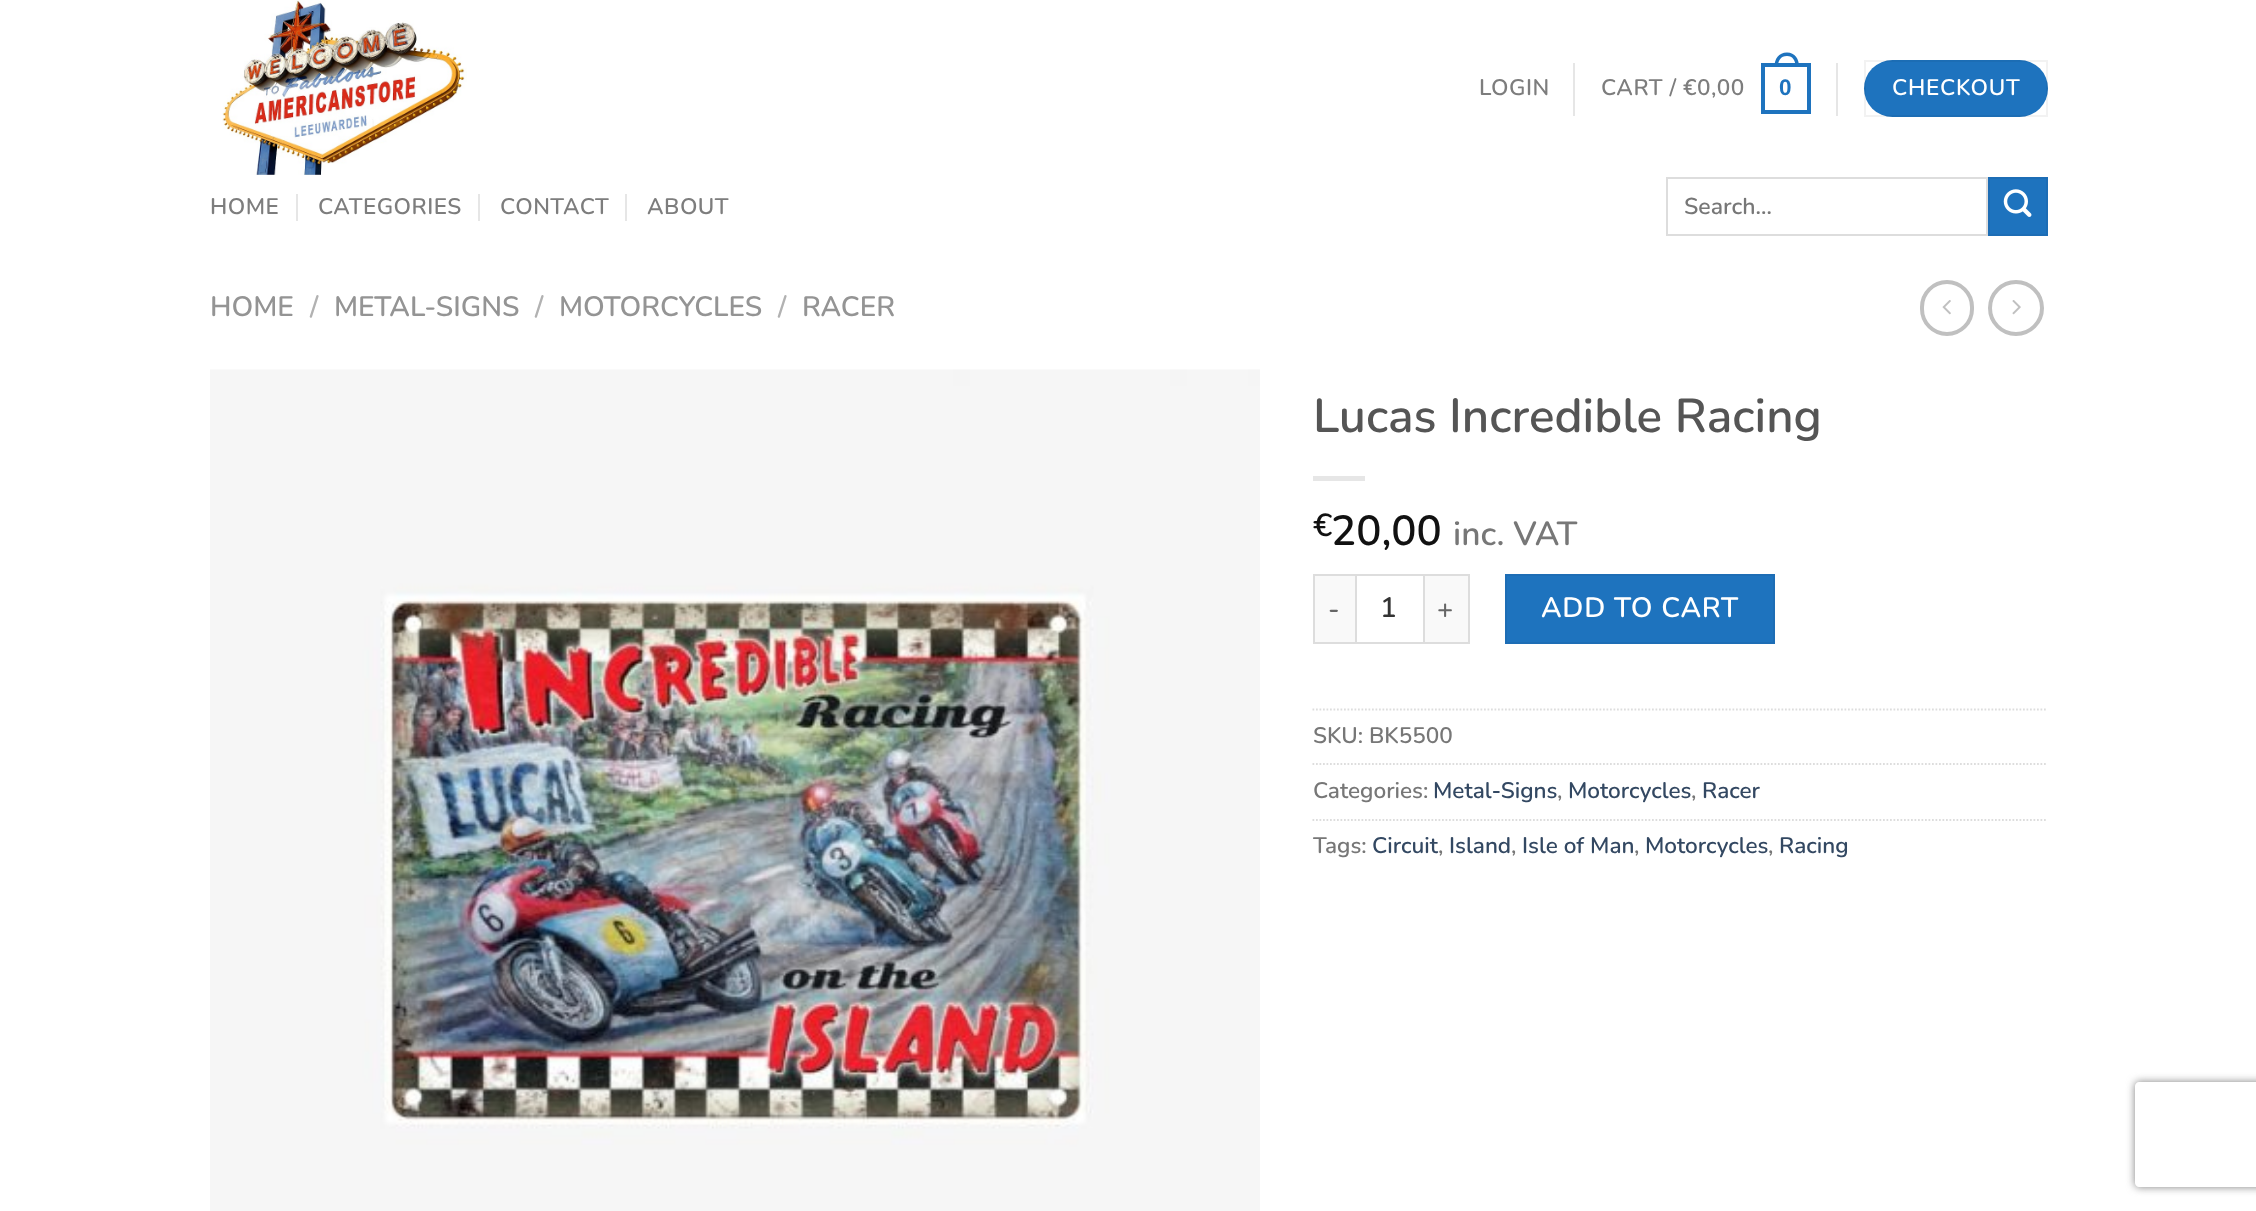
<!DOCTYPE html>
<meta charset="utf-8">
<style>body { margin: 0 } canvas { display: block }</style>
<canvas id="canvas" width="2256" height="1211"></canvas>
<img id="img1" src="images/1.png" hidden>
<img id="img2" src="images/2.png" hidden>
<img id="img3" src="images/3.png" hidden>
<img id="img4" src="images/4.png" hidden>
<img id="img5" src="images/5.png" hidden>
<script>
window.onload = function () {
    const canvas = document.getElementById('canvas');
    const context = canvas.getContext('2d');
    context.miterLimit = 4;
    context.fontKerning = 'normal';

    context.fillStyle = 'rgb(255, 255, 255)';
    context.fillRect(0, 0, 2256, 1211);
    context.drawImage(document.getElementById('img1'), 222, 0, 245, 175);
    context.fillStyle = 'rgb(230, 230, 230)';
    context.fillRect(1573, 63, 2, 53);
    context.strokeStyle = 'rgb(30, 115, 190)';
    context.lineWidth = 4;
    context.strokeRect(1763, 65, 46, 47);
    context.fillStyle = 'rgb(30, 115, 190)';
    context.beginPath();
    context.moveTo(1787, 52.5);
    context.bezierCurveTo(1795, 52.5, 1799, 59, 1799, 66.5);
    context.lineTo(1774.5, 66.5);
    context.bezierCurveTo(1774.5, 59, 1778.5, 52.5, 1787, 52.5);
    context.closePath();
    context.moveTo(1787, 56);
    context.bezierCurveTo(1793, 56, 1795.5, 61, 1795.5, 66.5);
    context.lineTo(1778, 66.5);
    context.bezierCurveTo(1778, 61, 1780.5, 56, 1787, 56);
    context.closePath();
    context.fill('evenodd');
    context.fillStyle = 'rgb(230, 230, 230)';
    context.fillRect(1836, 63, 2, 53);
    context.fillStyle = 'rgb(30, 115, 190)';
    context.beginPath();
    context.roundRect(1864, 60, 184, 57, 28.5);
    context.fill();
    context.strokeStyle = 'rgba(0, 0, 0, 0.05)';
    context.lineWidth = 2;
    context.strokeRect(1865, 61, 182, 55);
    context.fillStyle = 'rgb(230, 230, 230)';
    context.fillRect(296, 194, 2, 27);
    context.fillRect(478, 194, 2, 27);
    context.fillRect(625, 194, 2, 27);
    context.strokeStyle = 'rgb(221, 221, 221)';
    context.strokeRect(1667, 178, 320, 57);
    context.fillStyle = 'rgb(30, 115, 190)';
    context.beginPath();
    context.rect(1989, 178, 58, 57);
    context.fill();
    context.strokeStyle = 'rgb(29, 109, 181)';
    context.stroke();
    context.drawImage(document.getElementById('img2'), 2003, 189, 29, 28);
    context.beginPath();
    context.roundRect(1922, 282, 50, 52, 25);
    context.strokeStyle = 'rgb(192, 192, 192)';
    context.lineWidth = 4;
    context.stroke();
    context.drawImage(document.getElementById('img3'), 1942, 300, 9, 15);
    context.beginPath();
    context.arc(2016, 308, 26, 0, 2 * Math.PI);
    context.stroke();
    context.drawImage(document.getElementById('img4'), 2012, 300, 9, 15);
    context.drawImage(document.getElementById('img5'), 210, 369, 1050, 842);
    context.fillStyle = 'rgb(230, 230, 230)';
    context.fillRect(1313, 476, 52, 5);
    context.fillStyle = 'rgb(249, 249, 249)';
    context.fillRect(1315, 576, 40, 66);
    context.fillStyle = 'rgb(221, 221, 221)';
    context.fillRect(1313, 574, 42, 2);
    context.fillRect(1313, 642, 42, 2);
    context.fillRect(1313, 574, 2, 70);
    context.strokeStyle = 'rgb(221, 221, 221)';
    context.lineWidth = 2;
    context.strokeRect(1356, 575, 68, 68);
    context.fillStyle = 'rgb(249, 249, 249)';
    context.fillRect(1425, 576, 43, 66);
    context.fillStyle = 'rgb(221, 221, 221)';
    context.fillRect(1425, 574, 45, 2);
    context.fillRect(1468, 574, 2, 70);
    context.fillRect(1425, 642, 45, 2);
    context.fillStyle = 'rgb(30, 115, 190)';
    context.beginPath();
    context.rect(1506, 575, 268, 68);
    context.fill();
    context.strokeStyle = 'rgb(29, 109, 181)';
    context.stroke();
    context.beginPath();
    context.moveTo(1312.5, 709.5);
    context.lineTo(2047.5, 709.5);
    context.strokeStyle = 'rgb(221, 221, 221)';
    context.lineWidth = 1.8;
    context.setLineDash([1.75, 1.75]);
    context.stroke();
    context.beginPath();
    context.moveTo(1312.5, 764);
    context.lineTo(2047.5, 764);
    context.stroke();
    context.beginPath();
    context.moveTo(1312.5, 820);
    context.lineTo(2047.5, 820);
    context.stroke();
    context.save();
    context.beginPath();
    context.moveTo(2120, 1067);
    context.lineTo(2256, 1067);
    context.lineTo(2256, 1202);
    context.lineTo(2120, 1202);
    context.closePath();
    context.moveTo(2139, 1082);
    context.lineTo(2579, 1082);
    context.bezierCurveTo(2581, 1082, 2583, 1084, 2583, 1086);
    context.lineTo(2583, 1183);
    context.bezierCurveTo(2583, 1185, 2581, 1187, 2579, 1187);
    context.lineTo(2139, 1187);
    context.bezierCurveTo(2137, 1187, 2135, 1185, 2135, 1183);
    context.lineTo(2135, 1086);
    context.bezierCurveTo(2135, 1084, 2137, 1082, 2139, 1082);
    context.closePath();
    context.clip('evenodd');
    context.fillStyle = 'rgb(128, 128, 128)';
    context.filter = 'blur(4.5px)';
    context.beginPath();
    context.roundRect(2135, 1082, 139, 105, 4);
    context.fill();
    context.filter = 'none';
    context.restore();
    context.letterSpacing = '0.5px';
    context.font = '600 22.5px Nunito';
    context.fillStyle = 'rgb(125, 125, 125)';
    context.fillText('LOGIN', 1479, 95);
    context.fillText('CART / €0,00', 1601, 95);
    context.font = 'bold 22.5px Liberation Sans';
    context.fillStyle = 'rgb(30, 115, 190)';
    context.fillText('0', 1779, 95);
    context.letterSpacing = '0.75px';
    context.font = '600 22.5px Nunito';
    context.fillStyle = 'rgb(255, 255, 255)';
    context.fillText('CHECKOUT', 1892, 95);
    context.letterSpacing = '0.5px';
    context.fillStyle = 'rgb(125, 125, 125)';
    context.fillText('HOME', 210, 214);
    context.fillText('CATEGORIES', 318, 214);
    context.fillText('CONTACT', 500, 214);
    context.fillText('ABOUT', 647, 214);
    context.letterSpacing = '0px';
    context.font = '600 23px Nunito';
    context.fillStyle = 'rgb(119, 119, 119)';
    context.fillText('Search…', 1684, 214);
    context.font = '600 28px Nunito';
    context.fillStyle = 'rgb(148, 148, 148)';
    context.fillText('HOME', 210, 316);
    context.fillStyle = 'rgb(178, 178, 178)';
    context.fillText('/', 310, 316);
    context.fillStyle = 'rgb(148, 148, 148)';
    context.fillText('METAL-SIGNS', 334, 316);
    context.fillStyle = 'rgb(178, 178, 178)';
    context.fillText('/', 535, 316);
    context.fillStyle = 'rgb(148, 148, 148)';
    context.fillText('MOTORCYCLES', 559, 316);
    context.fillStyle = 'rgb(178, 178, 178)';
    context.fillText('/', 778, 316);
    context.fillStyle = 'rgb(148, 148, 148)';
    context.fillText('RACER', 802, 316);
    context.font = '600 47.6px Nunito';
    context.fillStyle = 'rgb(85, 85, 85)';
    context.fillText('Lucas Incredible Racing', 1313, 432);
    context.font = '600 32px Nunito';
    context.fillStyle = 'rgb(17, 17, 17)';
    context.fillText('€', 1313, 536);
    context.font = '600 42px Nunito';
    context.fillText('20,00', 1331, 545);
    context.font = '600 33.5px Nunito';
    context.fillStyle = 'rgb(119, 119, 119)';
    context.fillText('inc. VAT', 1453, 545);
    context.letterSpacing = '1px';
    context.font = '600 27px Nunito';
    context.fillStyle = 'rgb(102, 102, 102)';
    context.fillText('-', 1328, 618);
    context.letterSpacing = '0px';
    context.font = '600 28px Nunito';
    context.fillStyle = 'rgb(51, 51, 51)';
    context.fillText('1', 1380, 617);
    context.letterSpacing = '1px';
    context.font = '600 27px Nunito';
    context.fillStyle = 'rgb(102, 102, 102)';
    context.fillText('+', 1437, 618);
    context.letterSpacing = '0.75px';
    context.font = '600 28px Nunito';
    context.fillStyle = 'rgb(255, 255, 255)';
    context.fillText('ADD TO CART', 1541, 617);
    context.letterSpacing = '0px';
    context.font = '600 22.5px Nunito';
    context.fillStyle = 'rgb(119, 119, 119)';
    context.fillText('SKU: BK5500', 1313, 743);
    context.fillText('Categories:', 1313, 798);
    context.fillStyle = 'rgb(51, 72, 98)';
    context.fillText('Metal-Signs', 1433, 798);
    context.fillStyle = 'rgb(119, 119, 119)';
    context.fillText(',', 1557, 798);
    context.fillStyle = 'rgb(51, 72, 98)';
    context.fillText('Motorcycles', 1568, 798);
    context.fillStyle = 'rgb(119, 119, 119)';
    context.fillText(',', 1691, 798);
    context.fillStyle = 'rgb(51, 72, 98)';
    context.fillText('Racer', 1702, 798);
    context.fillStyle = 'rgb(119, 119, 119)';
    context.fillText('Tags:', 1313, 853);
    context.fillStyle = 'rgb(51, 72, 98)';
    context.fillText('Circuit', 1372, 853);
    context.fillStyle = 'rgb(119, 119, 119)';
    context.fillText(',', 1438, 853);
    context.fillStyle = 'rgb(51, 72, 98)';
    context.fillText('Island', 1449, 853);
    context.fillStyle = 'rgb(119, 119, 119)';
    context.fillText(',', 1511, 853);
    context.fillStyle = 'rgb(51, 72, 98)';
    context.fillText('Isle of Man', 1522, 853);
    context.fillStyle = 'rgb(119, 119, 119)';
    context.fillText(',', 1634, 853);
    context.fillStyle = 'rgb(51, 72, 98)';
    context.fillText('Motorcycles', 1645, 853);
    context.fillStyle = 'rgb(119, 119, 119)';
    context.fillText(',', 1768, 853);
    context.fillStyle = 'rgb(51, 72, 98)';
    context.fillText('Racing', 1779, 853);
};
</script>
